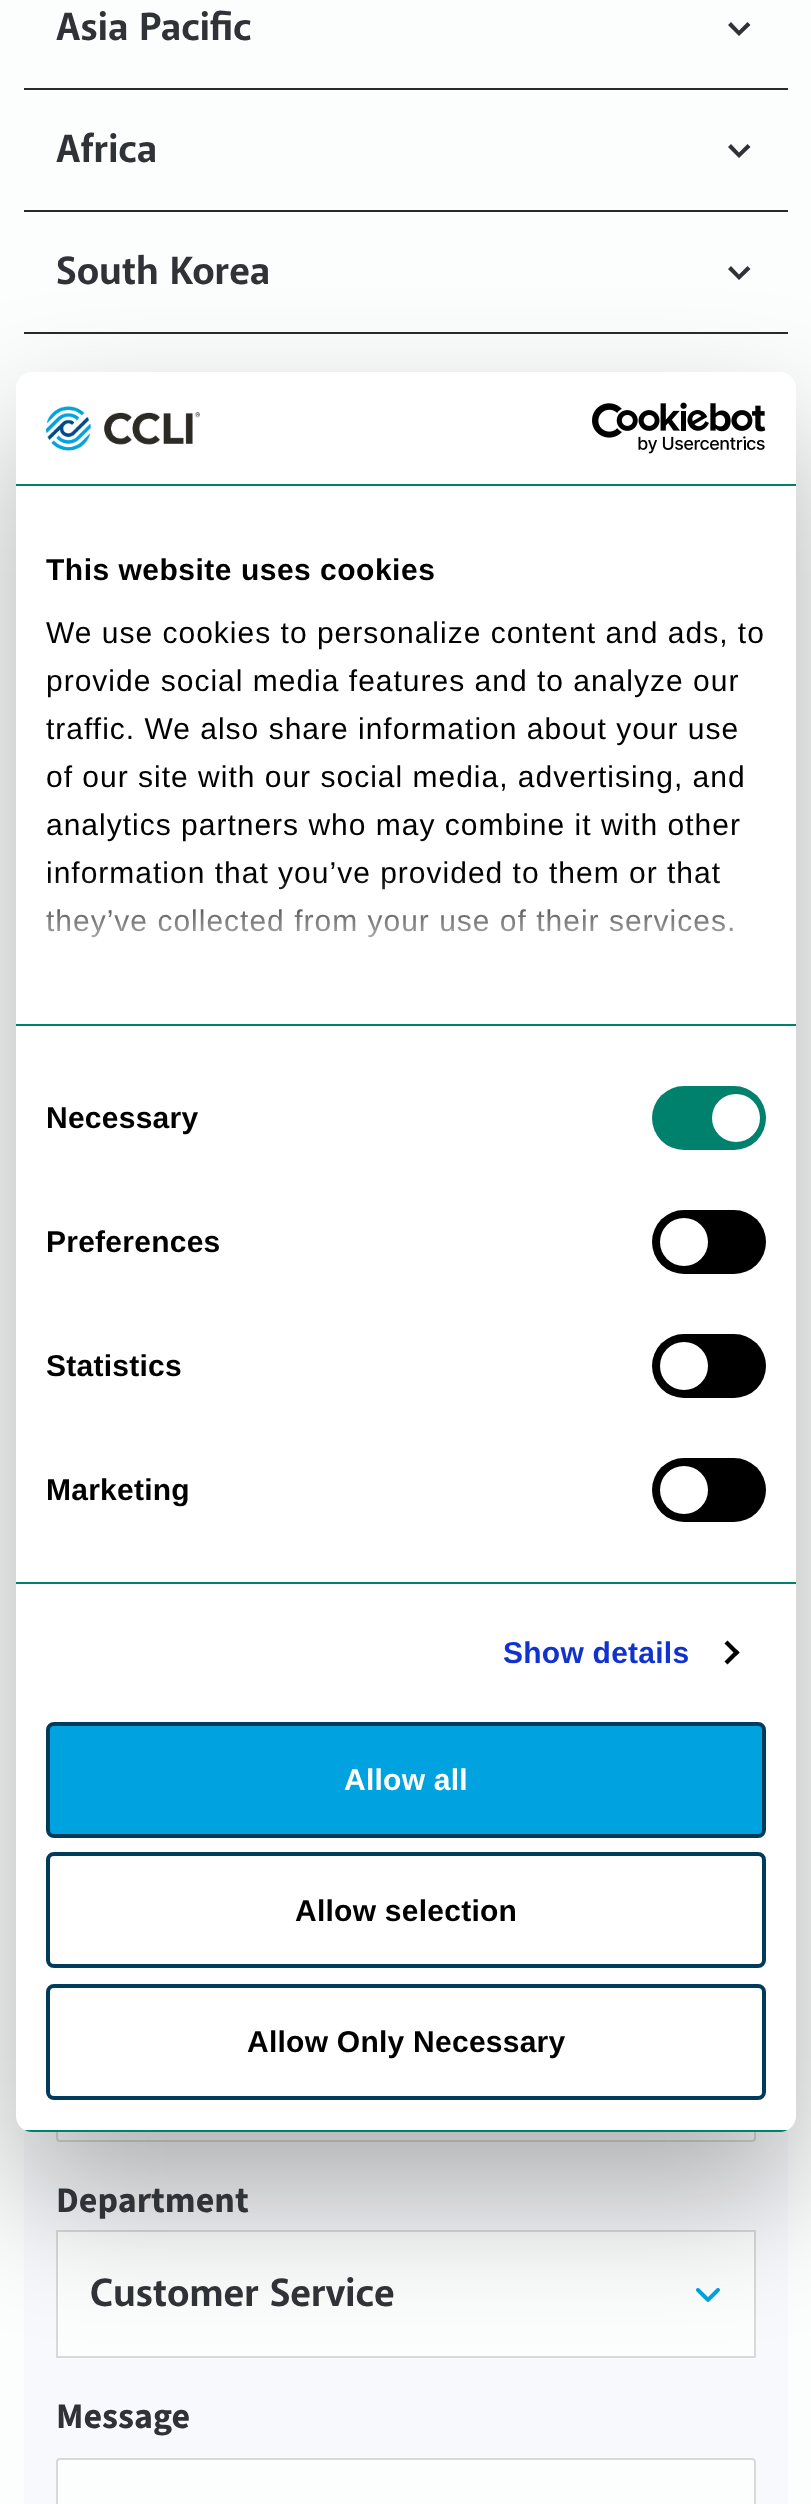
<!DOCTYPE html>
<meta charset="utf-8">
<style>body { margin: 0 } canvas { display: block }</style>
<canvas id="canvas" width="811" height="2504"></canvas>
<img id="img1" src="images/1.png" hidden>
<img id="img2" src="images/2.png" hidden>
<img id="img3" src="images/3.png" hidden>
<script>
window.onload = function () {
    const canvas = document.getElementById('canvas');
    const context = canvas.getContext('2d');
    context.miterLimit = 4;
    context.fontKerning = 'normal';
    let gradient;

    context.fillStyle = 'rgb(252, 253, 253)';
    context.fillRect(0, 0, 811, 2504);
    context.fillStyle = 'rgb(47, 50, 55)';
    context.beginPath();
    context.moveTo(731, 22);
    context.lineTo(728, 25);
    context.lineTo(739, 36);
    context.lineTo(750.5, 25);
    context.lineTo(747.5, 22);
    context.lineTo(739, 30.5);
    context.closePath();
    context.fill();
    context.fillStyle = 'rgb(44, 42, 41)';
    context.fillRect(24, 88, 764, 2);
    context.fillStyle = 'rgb(47, 50, 55)';
    context.beginPath();
    context.moveTo(731, 144);
    context.lineTo(728, 147);
    context.lineTo(739, 158);
    context.lineTo(750.5, 147);
    context.lineTo(747.5, 144);
    context.lineTo(739, 152.5);
    context.closePath();
    context.fill();
    context.fillStyle = 'rgb(44, 42, 41)';
    context.fillRect(24, 210, 764, 2);
    context.fillRect(24, 332, 764, 2);
    context.fillStyle = 'rgb(47, 50, 55)';
    context.beginPath();
    context.moveTo(731, 266);
    context.lineTo(728, 269);
    context.lineTo(739, 280);
    context.lineTo(750.5, 269);
    context.lineTo(747.5, 266);
    context.lineTo(739, 274.5);
    context.closePath();
    context.fill();
    context.fillStyle = 'rgb(248, 249, 252)';
    context.fillRect(24, 2129, 764, 375);
    context.fillStyle = 'rgb(252, 253, 253)';
    context.beginPath();
    context.roundRect(57, 2011, 698, 130, 3);
    context.fill();
    context.strokeStyle = 'rgb(217, 217, 217)';
    context.lineWidth = 2;
    context.stroke();
    context.beginPath();
    context.rect(57, 2231, 698, 126);
    context.fill();
    context.stroke();
    context.drawImage(document.getElementById('img1'), 696, 2288, 24, 14);
    context.beginPath();
    context.roundRect(57, 2459, 698, 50, 3);
    context.fill();
    context.stroke();
    context.fillStyle = 'rgba(0, 0, 0, 0.3)';
    context.filter = 'blur(68px)';
    context.beginPath();
    context.roundRect(16, 436, 780, 1760, 16);
    context.fill();
    context.filter = 'none';
    context.fillStyle = 'rgb(255, 255, 255)';
    context.beginPath();
    context.roundRect(16, 372, 780, 1760, 16);
    context.fill();
    context.fillStyle = 'rgb(0, 129, 109)';
    context.fillRect(16, 484, 780, 2);
    context.drawImage(document.getElementById('img2'), 46, 406, 154, 45);
    context.drawImage(document.getElementById('img3'), 592, 402, 174, 52);
    context.fillRect(16, 1024, 780, 2);
    context.fillRect(16, 1582, 780, 2);
    context.beginPath();
    context.roundRect(652, 1086, 114, 64, 32);
    context.fill();
    context.fillStyle = 'rgb(255, 255, 255)';
    context.beginPath();
    context.arc(736, 1118, 24, 0, 2 * Math.PI);
    context.fill();
    context.fillStyle = 'rgb(0, 0, 0)';
    context.beginPath();
    context.roundRect(652, 1210, 114, 64, 32);
    context.fill();
    context.fillStyle = 'rgb(255, 255, 255)';
    context.beginPath();
    context.arc(684, 1242, 24, 0, 2 * Math.PI);
    context.fill();
    context.fillStyle = 'rgb(0, 0, 0)';
    context.beginPath();
    context.roundRect(652, 1334, 114, 64, 32);
    context.fill();
    context.fillStyle = 'rgb(255, 255, 255)';
    context.beginPath();
    context.arc(684, 1366, 24, 0, 2 * Math.PI);
    context.fill();
    context.fillStyle = 'rgb(0, 0, 0)';
    context.beginPath();
    context.roundRect(652, 1458, 114, 64, 32);
    context.fill();
    context.fillStyle = 'rgb(255, 255, 255)';
    context.beginPath();
    context.arc(684, 1490, 24, 0, 2 * Math.PI);
    context.fill();
    context.fillStyle = 'rgb(0, 0, 0)';
    context.beginPath();
    context.moveTo(727.5, 1640.5);
    context.lineTo(739.5, 1652.5);
    context.lineTo(736.5, 1655.5);
    context.lineTo(724.5, 1643.5);
    context.closePath();
    context.fill();
    context.beginPath();
    context.moveTo(736.5, 1649.5);
    context.lineTo(739.5, 1652.5);
    context.lineTo(727.5, 1664.5);
    context.lineTo(724.5, 1661.5);
    context.closePath();
    context.fill();
    context.save();
    context.beginPath();
    context.roundRect(16, 372, 780, 1760, 16);
    context.clip();
    context.fillStyle = 'rgb(0, 129, 109)';
    context.fillRect(16, 2130, 780, 2);
    context.restore();
    context.fillStyle = 'rgb(0, 163, 224)';
    context.beginPath();
    context.roundRect(48, 1724, 716, 112, 6);
    context.fill();
    context.strokeStyle = 'rgb(0, 59, 92)';
    context.lineWidth = 4;
    context.stroke();
    context.beginPath();
    context.roundRect(48, 1854, 716, 112, 6);
    context.stroke();
    context.beginPath();
    context.roundRect(48, 1986, 716, 112, 6);
    context.stroke();
    context.font = 'bold 40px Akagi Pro';
    context.fillStyle = 'rgb(47, 50, 55)';
    context.fillText('Asia Pacific', 56, 40);
    context.fillText('Africa', 56, 162);
    context.fillText('South Korea', 56, 284);
    context.font = 'bold 36px "Source Sans 3"';
    context.fillText('Department', 56, 2212);
    context.font = 'bold 40px Akagi Pro';
    context.fillText('Customer Service', 90, 2306);
    context.font = 'bold 36px "Source Sans 3"';
    context.fillText('Message', 56, 2428);
    context.letterSpacing = '0.5px';
    context.font = 'bold 30px Liberation Sans';
    context.fillStyle = 'rgb(0, 0, 0)';
    context.fillText('This website uses cookies', 46, 580);
    context.letterSpacing = '1px';
    context.font = '30px Liberation Sans';
    context.fillText('We use cookies to personalize content and ads, to', 46, 643);
    context.fillText('provide social media features and to analyze our', 46, 691);
    context.fillText('traffic. We also share information about your use', 46, 739);
    context.fillText('of our site with our social media, advertising, and', 46, 787);
    context.fillText('analytics partners who may combine it with other', 46, 835);
    context.fillText('information that you’ve provided to them or that', 46, 883);
    context.fillText('they’ve collected from your use of their services.', 46, 931);
    gradient = context.createLinearGradient(393, 1025, 393, 875);
    gradient.addColorStop(0, 'rgb(255, 255, 255)');
    gradient.addColorStop(0.5, 'rgba(255, 255, 255, 0.8)');
    gradient.addColorStop(1, 'rgba(255, 255, 255, 0)');
    context.fillStyle = gradient;
    context.fillRect(46, 877, 687, 61);
    context.letterSpacing = '0.25px';
    context.font = 'bold 30px Liberation Sans';
    context.fillStyle = 'rgb(0, 0, 0)';
    context.fillText('Necessary', 46, 1128);
    context.fillText('Preferences', 46, 1252);
    context.fillText('Statistics', 46, 1376);
    context.fillText('Marketing', 46, 1500);
    context.fillStyle = 'rgb(16, 50, 207)';
    context.fillText('Show details', 503, 1663);
    context.fillStyle = 'rgb(255, 255, 255)';
    context.fillText('Allow all', 344, 1790);
    context.fillStyle = 'rgb(0, 0, 0)';
    context.fillText('Allow selection', 295, 1921);
    context.fillText('Allow Only Necessary', 247, 2052);
};
</script>
